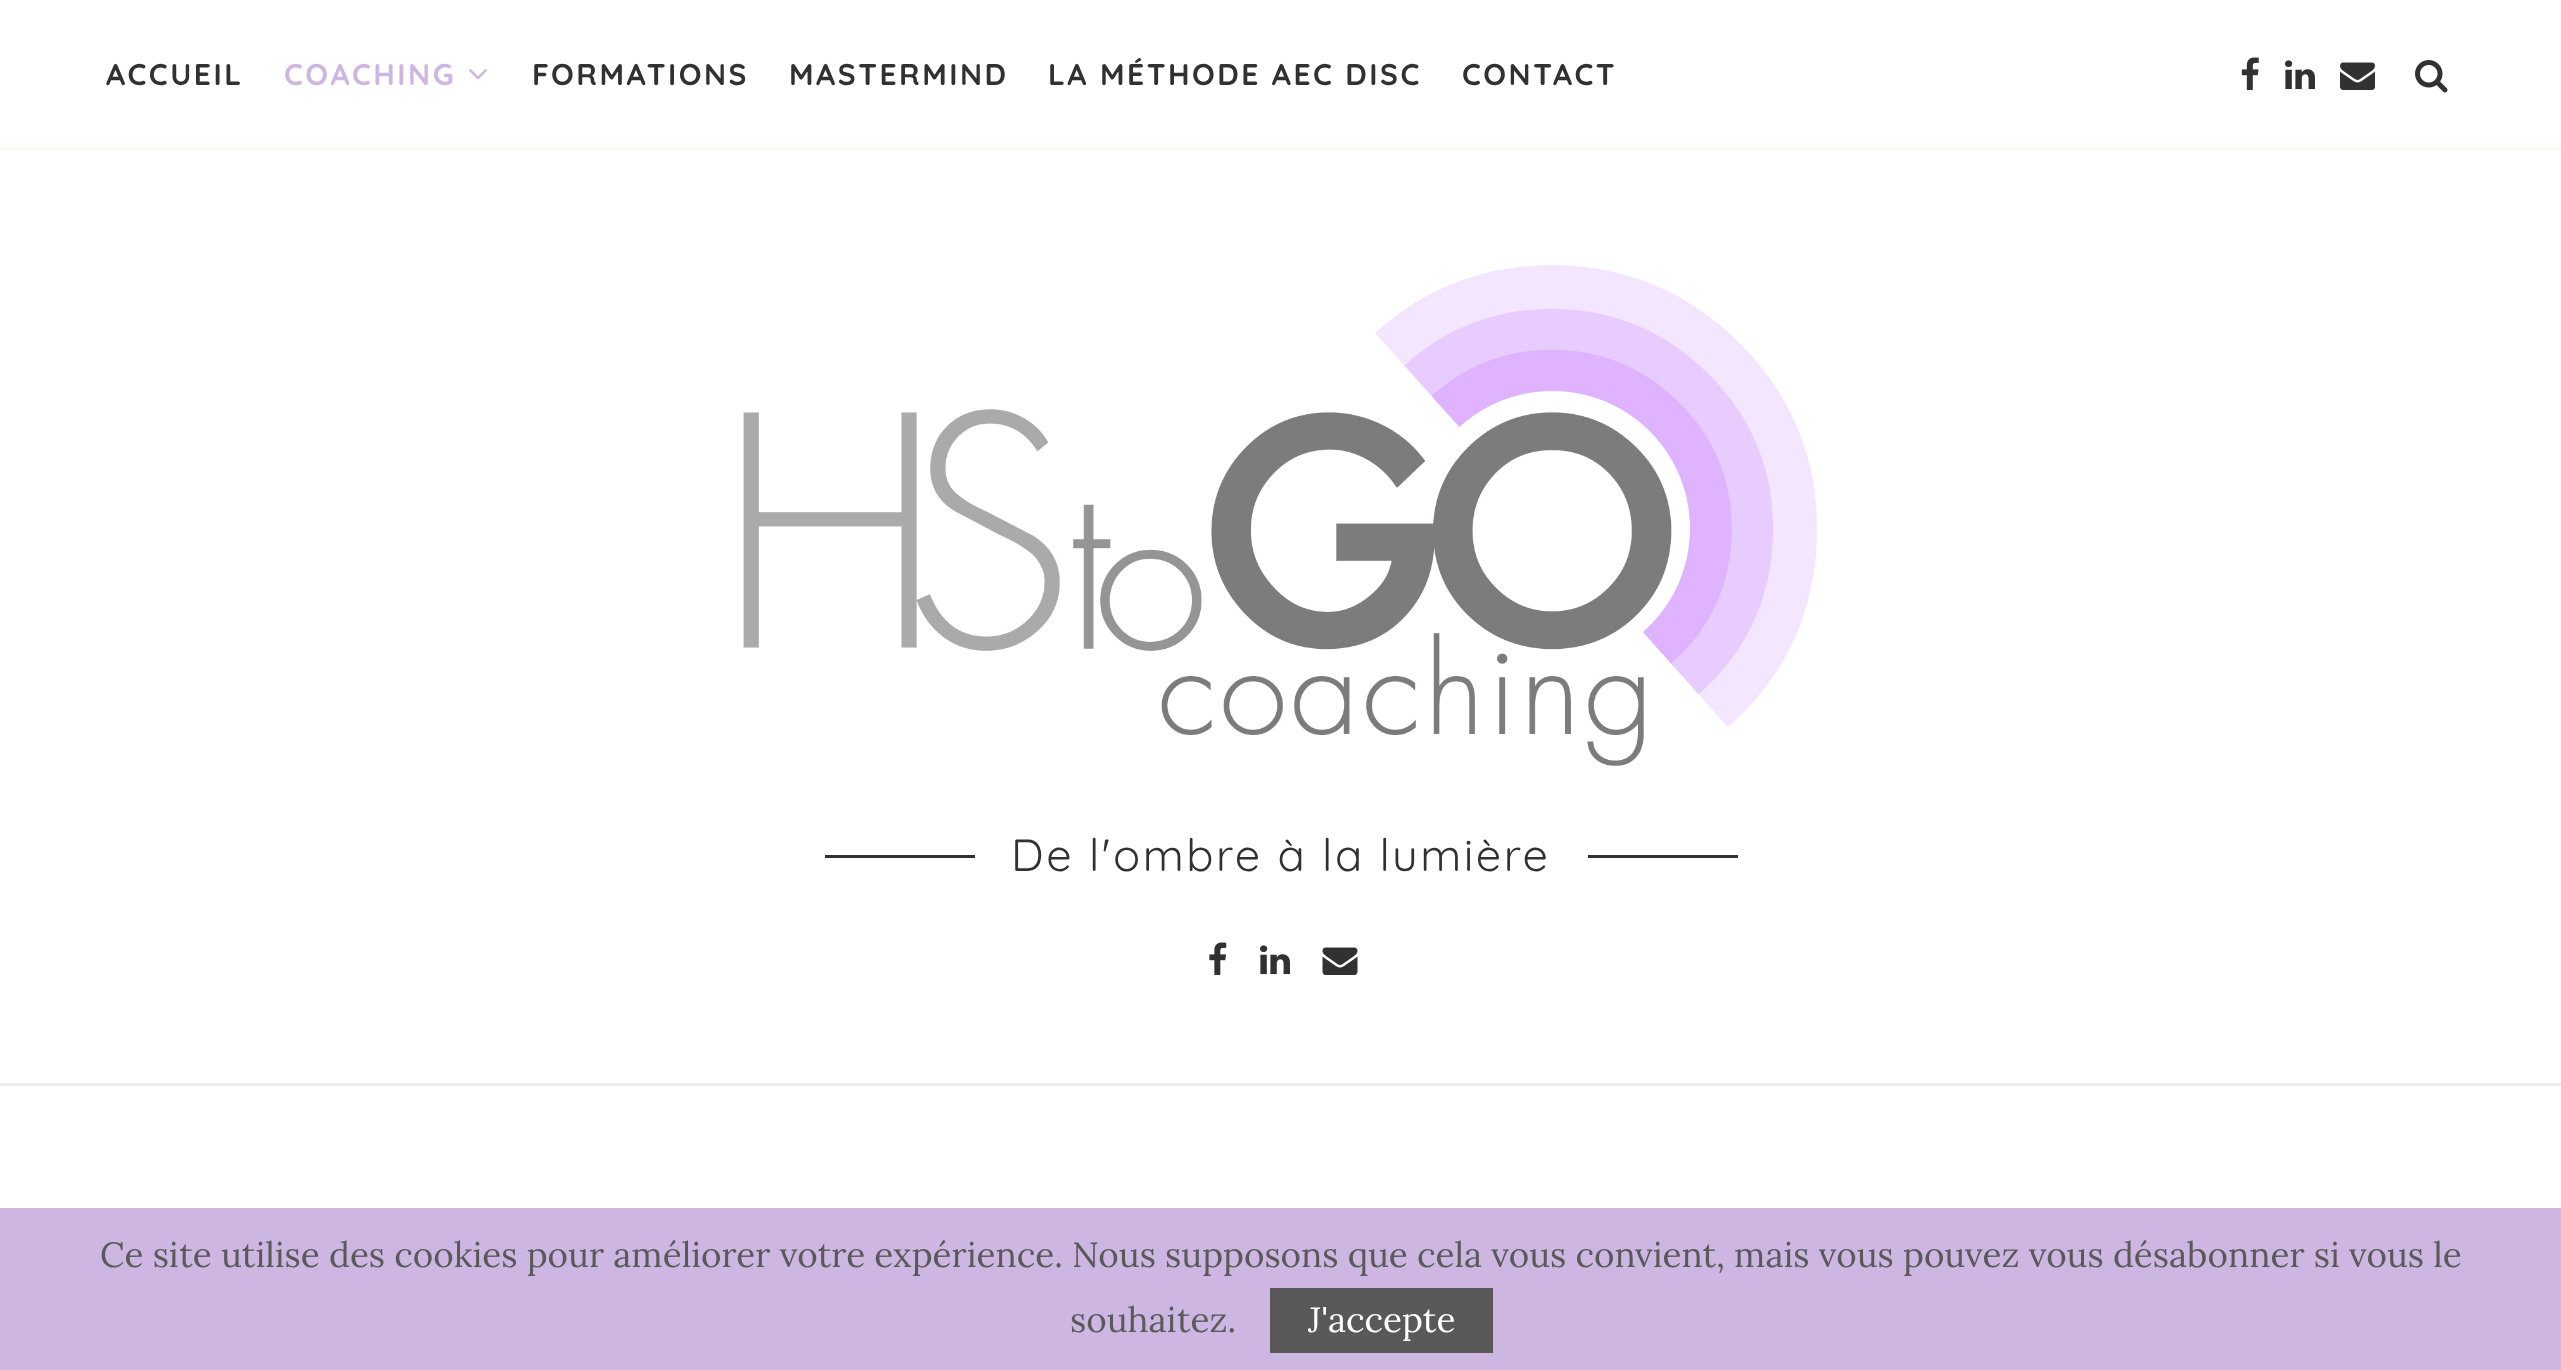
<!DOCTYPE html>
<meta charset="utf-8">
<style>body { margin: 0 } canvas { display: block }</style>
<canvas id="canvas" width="2561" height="1370"></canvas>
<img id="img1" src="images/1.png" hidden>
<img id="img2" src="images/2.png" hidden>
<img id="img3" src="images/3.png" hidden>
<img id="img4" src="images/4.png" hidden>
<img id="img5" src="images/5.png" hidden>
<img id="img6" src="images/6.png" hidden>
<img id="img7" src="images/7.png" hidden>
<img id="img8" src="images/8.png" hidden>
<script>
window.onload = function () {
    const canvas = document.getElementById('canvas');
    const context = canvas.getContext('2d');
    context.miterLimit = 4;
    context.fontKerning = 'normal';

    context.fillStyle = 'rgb(255, 255, 255)';
    context.fillRect(0, 0, 2561, 1370);
    context.fillStyle = 'rgb(255, 243, 240)';
    context.fillRect(0, 148, 2561, 2);
    context.drawImage(document.getElementById('img1'), 469, 69, 18, 11);
    context.drawImage(document.getElementById('img2'), 2241, 57, 18, 33);
    context.drawImage(document.getElementById('img3'), 2285, 60, 30, 30);
    context.drawImage(document.getElementById('img4'), 2340, 62, 35, 28);
    context.drawImage(document.getElementById('img5'), 2415, 60, 33, 33);
    context.fillStyle = 'rgb(238, 238, 238)';
    context.fillRect(0, 1083, 2561, 3);
    context.drawImage(document.getElementById('img6'), 743, 265, 1074, 501);
    context.fillStyle = 'rgb(49, 49, 49)';
    context.fillRect(825, 855, 150, 3);
    context.fillRect(1588, 855, 150, 3);
    context.drawImage(document.getElementById('img7'), 1209, 942, 18, 33);
    context.drawImage(document.getElementById('img3'), 1260, 945, 30, 30);
    context.drawImage(document.getElementById('img8'), 1322, 947, 36, 28);
    context.fillStyle = 'rgb(205, 183, 226)';
    context.fillRect(0, 1208, 2561, 162);
    context.fillStyle = 'rgb(89, 89, 89)';
    context.fillRect(1270, 1288, 223, 65);
    context.letterSpacing = '2.5px';
    context.font = 'bold 30px Quicksand';
    context.fillStyle = 'rgb(49, 49, 49)';
    context.fillText('ACCUEIL', 106, 85);
    context.fillStyle = 'rgb(205, 183, 226)';
    context.fillText('COACHING', 284, 85);
    context.fillStyle = 'rgb(49, 49, 49)';
    context.fillText('FORMATIONS', 532, 85);
    context.fillText('MASTERMIND', 789, 85);
    context.fillText('LA MÉTHODE AEC DISC', 1048, 85);
    context.fillText('CONTACT', 1462, 85);
    context.font = '45px Quicksand';
    context.fillText('De l\'ombre à la lumière', 1011, 871);
    context.letterSpacing = '0px';
    context.font = '35px Lora';
    context.fillStyle = 'rgb(89, 89, 89)';
    context.fillText('Ce site utilise des cookies pour améliorer votre expérience. Nous supposons que cela vous convient, mais vous pouvez vous désabonner si vous le', 100, 1267);
    context.fillText('souhaitez.', 1070, 1332);
    context.fillStyle = 'rgb(255, 255, 255)';
    context.fillText('J\'accepte', 1308, 1332);
};
</script>
